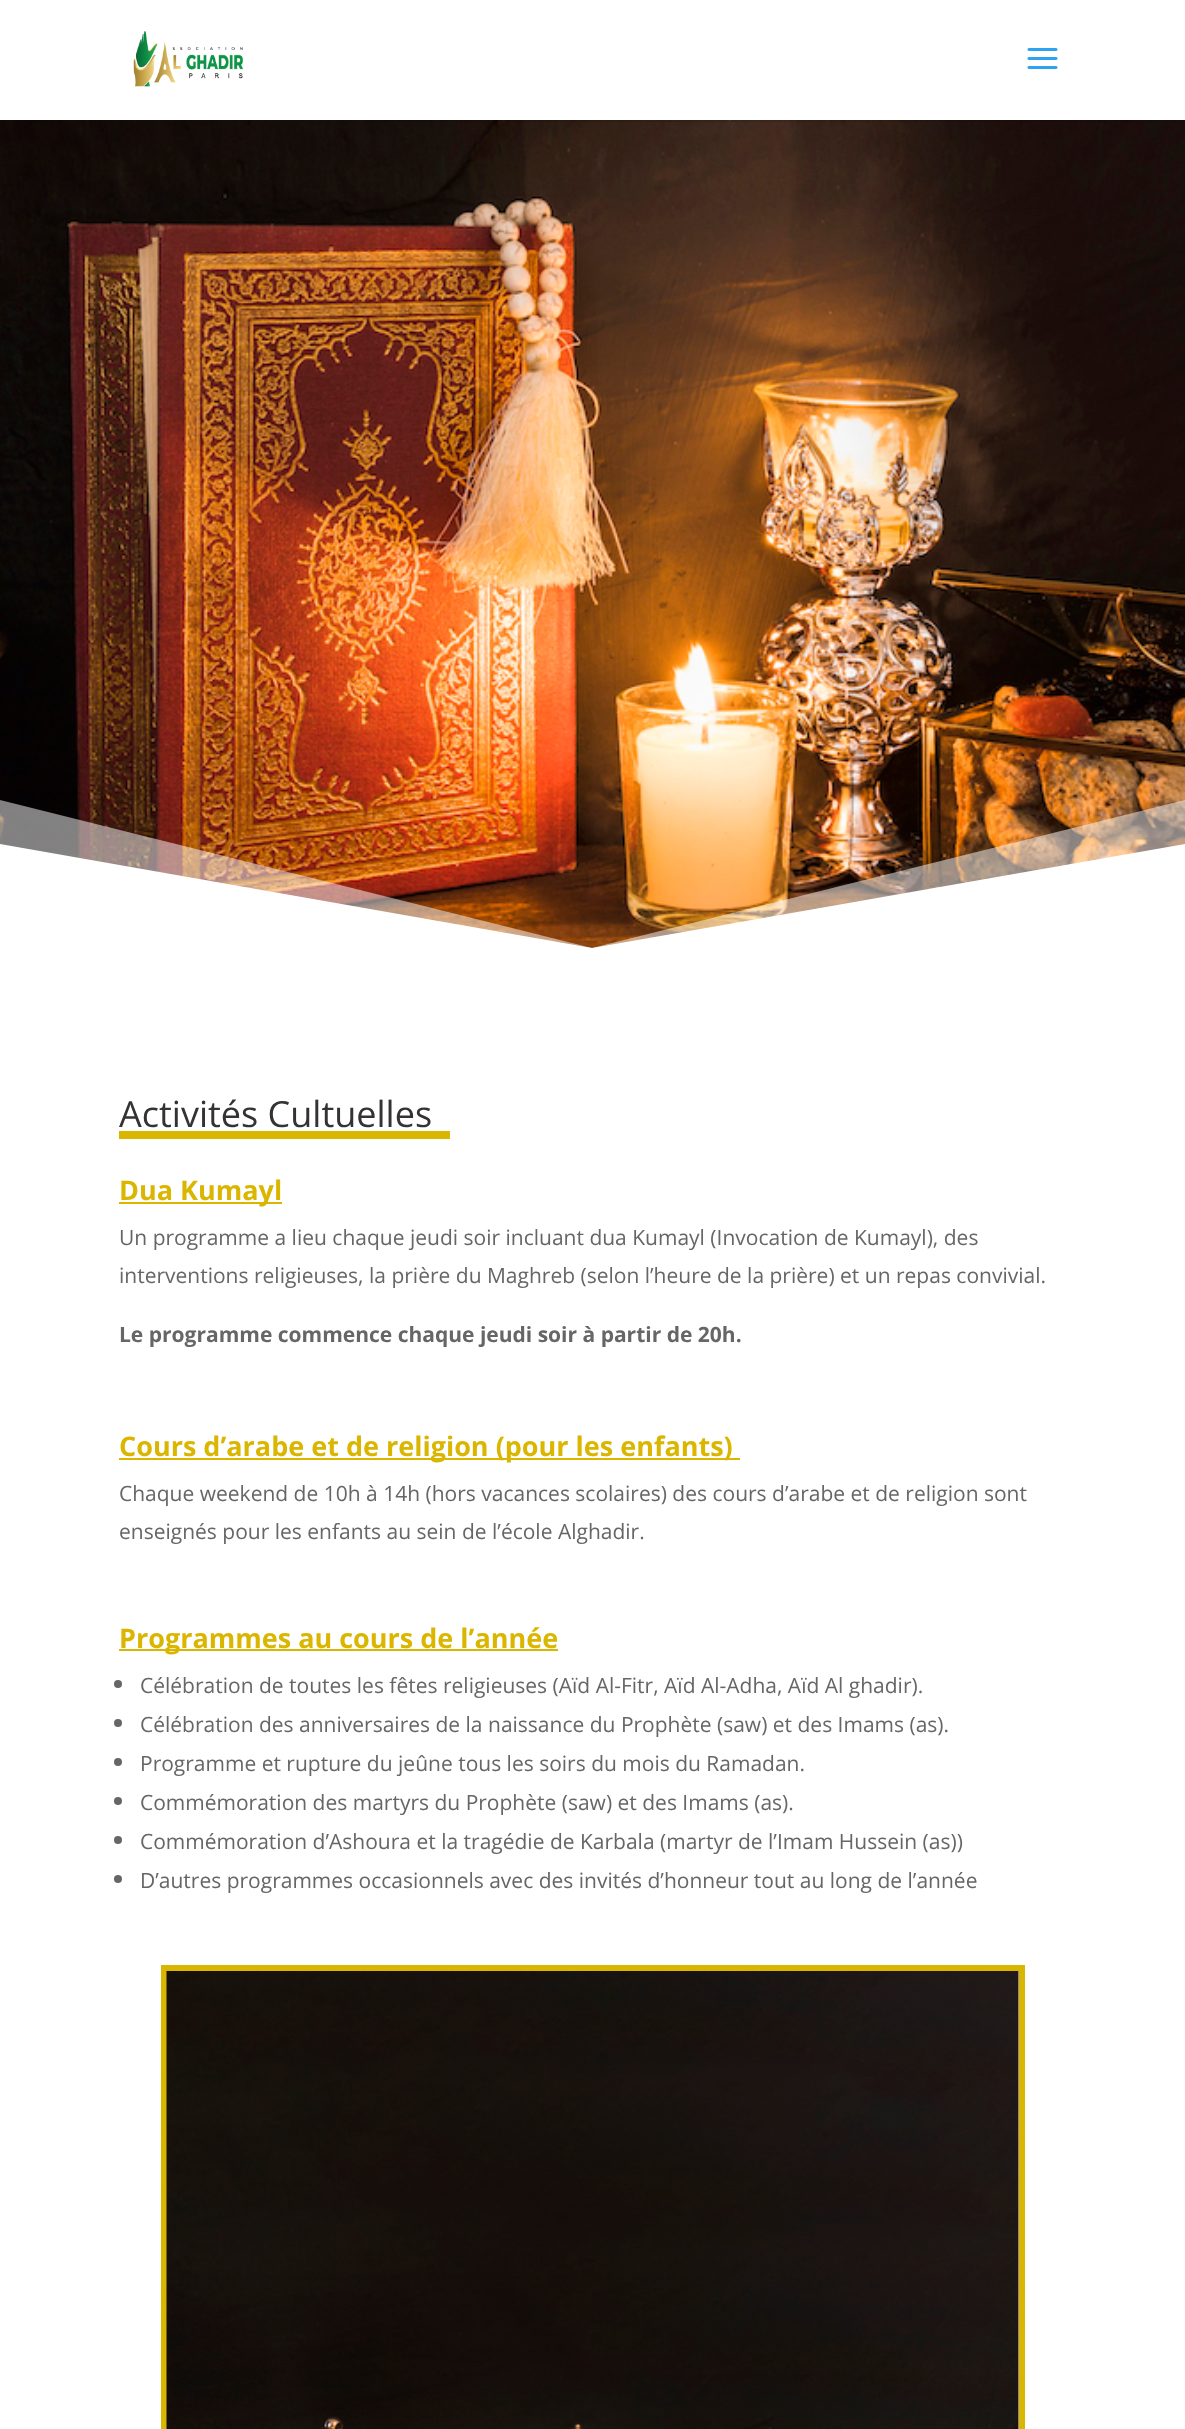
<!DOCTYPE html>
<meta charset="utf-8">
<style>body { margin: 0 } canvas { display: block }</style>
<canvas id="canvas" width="1185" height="2429"></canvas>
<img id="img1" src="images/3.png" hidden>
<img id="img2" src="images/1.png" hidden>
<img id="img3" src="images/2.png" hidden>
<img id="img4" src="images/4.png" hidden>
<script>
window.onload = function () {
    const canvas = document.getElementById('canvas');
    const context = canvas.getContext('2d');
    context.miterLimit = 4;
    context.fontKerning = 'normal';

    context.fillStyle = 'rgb(255, 255, 255)';
    context.fillRect(0, 0, 1185, 2429);
    context.drawImage(document.getElementById('img1'), 0, 120, 1185, 828);
    context.fillStyle = 'rgba(0, 0, 0, 0.1)';
    context.fillRect(364, 120, 821, 2);
    context.drawImage(document.getElementById('img2'), 133, 31, 111, 56);
    context.drawImage(document.getElementById('img3'), 1027, 48, 31, 21);
    context.fillStyle = 'rgba(255, 255, 255, 0.5)';
    context.beginPath();
    context.moveTo(592, 948);
    context.lineTo(0, 800);
    context.lineTo(0, 950);
    context.lineTo(1185, 950);
    context.lineTo(1185, 800);
    context.closePath();
    context.fill();
    context.fillStyle = 'rgb(255, 255, 255)';
    context.beginPath();
    context.moveTo(592, 948);
    context.lineTo(0, 844);
    context.lineTo(0, 950);
    context.lineTo(1185, 950);
    context.lineTo(1185, 844);
    context.closePath();
    context.fill();
    context.fillStyle = 'rgb(219, 182, 0)';
    context.fillRect(119, 1131, 331, 8);
    context.fillRect(119, 1202, 163, 2);
    context.fillRect(119, 1458, 621, 2);
    context.fillRect(119, 1649, 439, 2);
    context.fillStyle = 'rgb(102, 102, 102)';
    context.beginPath();
    context.arc(118, 1684, 4, 0, 2 * Math.PI);
    context.fill();
    context.beginPath();
    context.arc(118, 1723, 4, 0, 2 * Math.PI);
    context.fill();
    context.beginPath();
    context.arc(118, 1762, 4, 0, 2 * Math.PI);
    context.fill();
    context.beginPath();
    context.arc(118, 1801, 4, 0, 2 * Math.PI);
    context.fill();
    context.beginPath();
    context.arc(118, 1840, 4, 0, 2 * Math.PI);
    context.fill();
    context.beginPath();
    context.arc(118, 1879, 4, 0, 2 * Math.PI);
    context.fill();
    context.strokeStyle = 'rgb(219, 182, 0)';
    context.lineWidth = 6;
    context.strokeRect(164, 1968, 858, 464);
    context.drawImage(document.getElementById('img4'), 166, 1971, 853, 458);
    context.font = '36px Open Sans';
    context.fillStyle = 'rgb(51, 51, 51)';
    context.fillText('Activités Cultuelles', 119, 1127);
    context.font = 'bold 27px Open Sans';
    context.fillStyle = 'rgb(219, 182, 0)';
    context.fillText('Dua Kumayl', 119, 1200);
    context.font = '21px Open Sans';
    context.fillStyle = 'rgb(102, 102, 102)';
    context.fillText('Un programme a lieu chaque jeudi soir incluant dua Kumayl (Invocation de Kumayl), des', 119, 1245);
    context.fillText('interventions religieuses, la prière du Maghreb (selon l’heure de la prière) et un repas convivial.', 119, 1283);
    context.font = 'bold 21px Open Sans';
    context.fillText('Le programme commence chaque jeudi soir à partir de 20h.', 119, 1342);
    context.font = 'bold 27px Open Sans';
    context.fillStyle = 'rgb(219, 182, 0)';
    context.fillText('Cours d’arabe et de religion (pour les enfants)', 119, 1456);
    context.font = '21px Open Sans';
    context.fillStyle = 'rgb(102, 102, 102)';
    context.fillText('Chaque weekend de 10h à 14h (hors vacances scolaires) des cours d’arabe et de religion sont', 119, 1501);
    context.fillText('enseignés pour les enfants au sein de l’école Alghadir.', 119, 1539);
    context.font = 'bold 27px Open Sans';
    context.fillStyle = 'rgb(219, 182, 0)';
    context.fillText('Programmes au cours de l’année', 119, 1648);
    context.font = '21px Open Sans';
    context.fillStyle = 'rgb(102, 102, 102)';
    context.fillText('Célébration de toutes les fêtes religieuses (Aïd Al-Fitr, Aïd Al-Adha, Aïd Al ghadir).', 140, 1693);
    context.fillText('Célébration des anniversaires de la naissance du Prophète (saw) et des Imams (as).', 140, 1732);
    context.fillText('Programme et rupture du jeûne tous les soirs du mois du Ramadan.', 140, 1771);
    context.fillText('Commémoration des martyrs du Prophète (saw) et des Imams (as).', 140, 1810);
    context.fillText('Commémoration d’Ashoura et la tragédie de Karbala (martyr de l’Imam Hussein (as))', 140, 1849);
    context.fillText('D’autres programmes occasionnels avec des invités d’honneur tout au long de l’année', 140, 1888);
};
</script>
